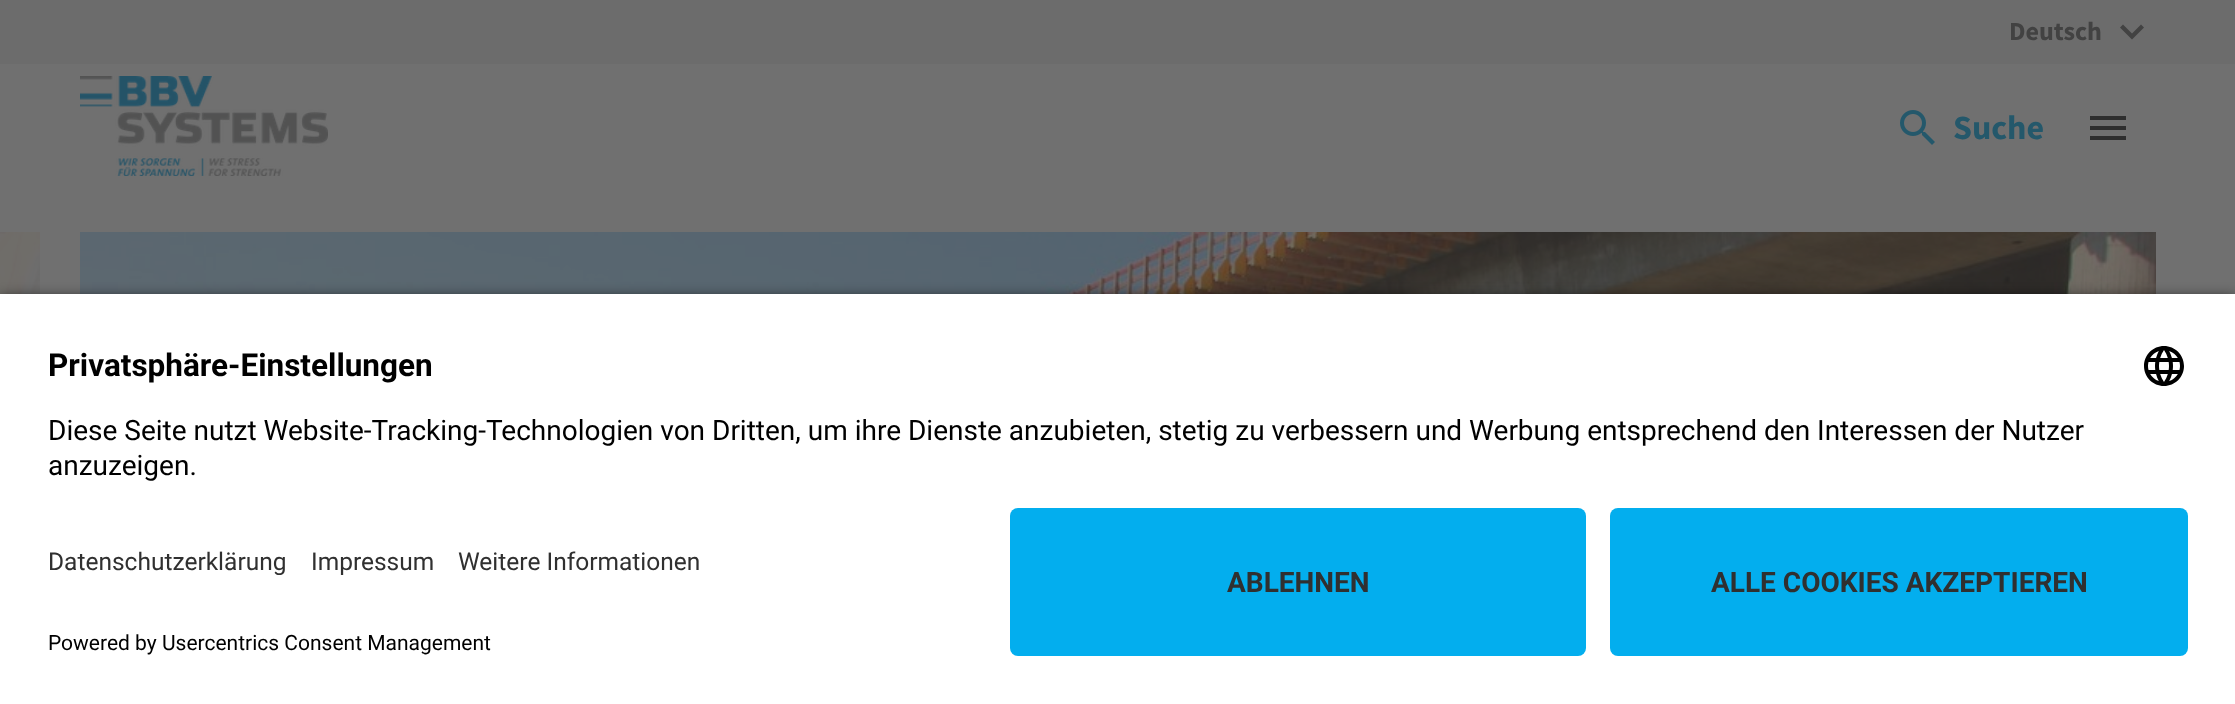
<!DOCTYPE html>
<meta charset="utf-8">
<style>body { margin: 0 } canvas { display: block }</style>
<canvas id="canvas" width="2235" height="704"></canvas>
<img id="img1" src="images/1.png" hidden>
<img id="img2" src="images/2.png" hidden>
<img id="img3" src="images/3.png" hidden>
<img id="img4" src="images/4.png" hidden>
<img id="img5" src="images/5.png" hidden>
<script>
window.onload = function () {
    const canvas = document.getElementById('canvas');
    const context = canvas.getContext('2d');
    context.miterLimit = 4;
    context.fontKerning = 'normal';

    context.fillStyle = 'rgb(112, 112, 112)';
    context.fillRect(0, 0, 2235, 704);
    context.fillStyle = 'rgb(108, 108, 108)';
    context.fillRect(0, 0, 2235, 64);
    context.drawImage(document.getElementById('img1'), 80, 76, 248, 100);
    context.fillStyle = 'rgb(66, 66, 66)';
    context.beginPath();
    context.moveTo(2123, 24.5);
    context.lineTo(2132, 33.5);
    context.lineTo(2141, 24.5);
    context.lineTo(2144, 27.5);
    context.lineTo(2132, 39.5);
    context.lineTo(2120, 27.5);
    context.closePath();
    context.fill();
    context.drawImage(document.getElementById('img2'), 1900, 110, 35, 35);
    context.fillStyle = 'rgb(46, 46, 46)';
    context.fillRect(2090, 116, 36, 4);
    context.fillRect(2090, 126, 36, 4);
    context.fillRect(2090, 136, 36, 4);
    context.drawImage(document.getElementById('img3'), 0, 232, 40, 62);
    context.drawImage(document.getElementById('img4'), 80, 232, 2076, 62);
    context.fillStyle = 'rgba(0, 0, 0, 0.8)';
    context.filter = 'blur(7px)';
    context.beginPath();
    context.rect(0, 298, 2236, 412);
    context.fill();
    context.filter = 'none';
    context.fillStyle = 'rgb(255, 255, 255)';
    context.fillRect(0, 294, 2235, 410);
    context.drawImage(document.getElementById('img5'), 2144, 346, 40, 40);
    context.fillStyle = 'rgb(3, 174, 238)';
    context.beginPath();
    context.roundRect(1010, 508, 576, 148, 8);
    context.fill();
    context.beginPath();
    context.roundRect(1610, 508, 578, 148, 8);
    context.fill();
    context.font = 'bold 26px Source Sans Pro';
    context.fillStyle = 'rgb(66, 66, 66)';
    context.fillText('Deutsch', 2009, 40);
    context.font = 'bold 34px Source Sans Pro';
    context.fillStyle = 'rgb(36, 88, 107)';
    context.fillText('Suche', 1953, 139);
    context.font = 'bold 31.5px Roboto';
    context.fillStyle = 'rgb(0, 0, 0)';
    context.fillText('Privatsphäre-Einstellungen', 48, 376);
    context.font = '28px Roboto';
    context.fillText('Diese Seite nutzt Website-Tracking-Technologien von Dritten, um ihre Dienste anzubieten, stetig zu verbessern und Werbung entsprechend den Interessen der Nutzer', 48, 440);
    context.fillText('anzuzeigen.', 48, 475);
    context.font = '24.5px Roboto';
    context.fillStyle = 'rgb(48, 48, 48)';
    context.fillText('Datenschutzerklärung', 48, 570);
    context.fillText('Impressum', 311, 570);
    context.fillText('Weitere Informationen', 458, 570);
    context.font = '21px Roboto';
    context.fillStyle = 'rgb(0, 0, 0)';
    context.fillText('Powered by Usercentrics Consent Management', 48, 650);
    context.font = 'bold 28px Roboto';
    context.fillStyle = 'rgb(48, 48, 48)';
    context.fillText('ABLEHNEN', 1227, 592);
    context.fillText('ALLE COOKIES AKZEPTIEREN', 1711, 592);
};
</script>
